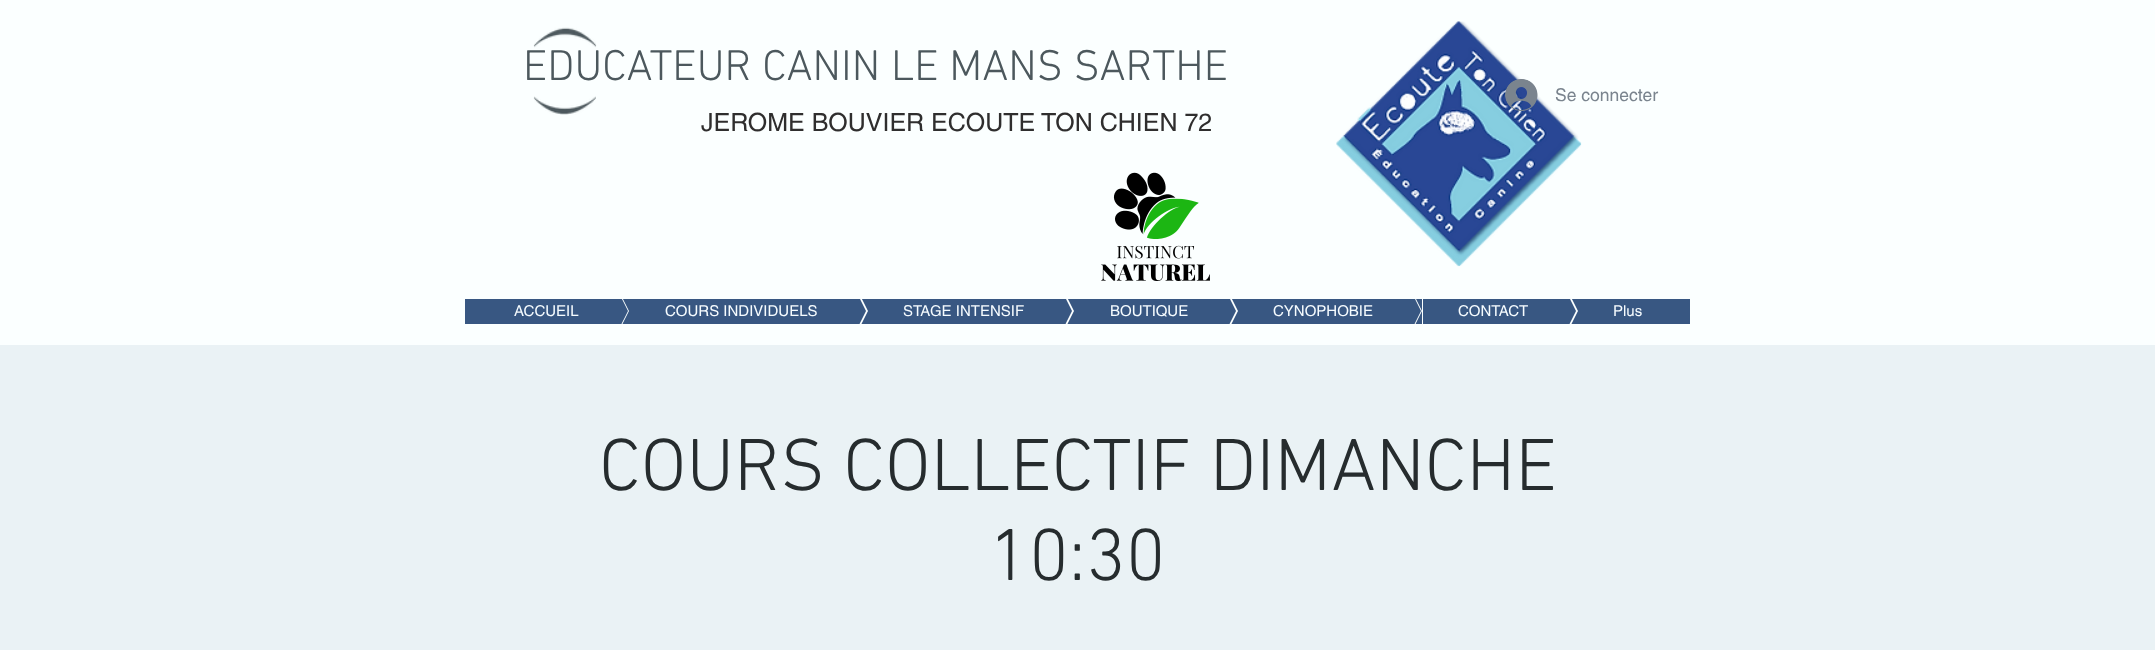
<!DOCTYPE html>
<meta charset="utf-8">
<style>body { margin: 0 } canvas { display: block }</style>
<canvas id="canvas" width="2155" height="650"></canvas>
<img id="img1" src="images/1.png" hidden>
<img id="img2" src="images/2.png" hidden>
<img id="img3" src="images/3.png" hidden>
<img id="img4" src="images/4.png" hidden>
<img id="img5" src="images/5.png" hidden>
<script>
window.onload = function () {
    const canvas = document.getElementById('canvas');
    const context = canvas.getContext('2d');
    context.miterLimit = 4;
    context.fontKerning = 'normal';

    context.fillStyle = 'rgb(251, 255, 255)';
    context.fillRect(0, 0, 2155, 650);
    context.drawImage(document.getElementById('img1'), 533, 27, 64, 21);
    context.drawImage(document.getElementById('img2'), 1336, 21, 246, 246);
    context.drawImage(document.getElementById('img3'), 533, 96, 63, 19);
    context.drawImage(document.getElementById('img4'), 1505, 79, 33, 32);
    context.drawImage(document.getElementById('img5'), 1101, 172, 109, 109);
    context.fillStyle = 'rgb(56, 87, 130)';
    context.fillRect(465, 299, 75, 25);
    context.save();
    context.beginPath();
    context.rect(540, 299, 88, 25);
    context.clip();
    context.beginPath();
    context.moveTo(628, 311);
    context.lineTo(540, 311);
    context.lineTo(540, 136);
    context.closePath();
    context.fill();
    context.beginPath();
    context.moveTo(540, 311);
    context.lineTo(628, 311);
    context.lineTo(540, 486);
    context.closePath();
    context.fill();
    context.restore();
    context.save();
    context.beginPath();
    context.rect(541, 299, 88, 25);
    context.clip();
    context.beginPath();
    context.moveTo(541, 136);
    context.lineTo(629, 136);
    context.lineTo(629, 311);
    context.closePath();
    context.moveTo(629, 486);
    context.lineTo(541, 486);
    context.lineTo(629, 311);
    context.closePath();
    context.fill();
    context.restore();
    context.fillRect(629, 299, 150, 25);
    context.save();
    context.beginPath();
    context.rect(779, 299, 87, 25);
    context.clip();
    context.beginPath();
    context.moveTo(866, 311);
    context.lineTo(779, 311);
    context.lineTo(779, 136);
    context.closePath();
    context.fill();
    context.beginPath();
    context.moveTo(779, 311);
    context.lineTo(866, 311);
    context.lineTo(779, 486);
    context.closePath();
    context.fill();
    context.restore();
    context.save();
    context.beginPath();
    context.rect(780, 299, 88, 25);
    context.clip();
    context.beginPath();
    context.moveTo(780, 136);
    context.lineTo(868, 136);
    context.lineTo(868, 311);
    context.closePath();
    context.moveTo(868, 486);
    context.lineTo(780, 486);
    context.lineTo(868, 311);
    context.closePath();
    context.fill();
    context.restore();
    context.fillRect(868, 299, 117, 25);
    context.save();
    context.beginPath();
    context.rect(985, 299, 88, 25);
    context.clip();
    context.beginPath();
    context.moveTo(1072, 311);
    context.lineTo(985, 311);
    context.lineTo(985, 136);
    context.closePath();
    context.fill();
    context.beginPath();
    context.moveTo(985, 311);
    context.lineTo(1072, 311);
    context.lineTo(985, 486);
    context.closePath();
    context.fill();
    context.restore();
    context.save();
    context.beginPath();
    context.rect(986, 299, 88, 25);
    context.clip();
    context.beginPath();
    context.moveTo(986, 136);
    context.lineTo(1074, 136);
    context.lineTo(1074, 311);
    context.closePath();
    context.moveTo(1074, 486);
    context.lineTo(986, 486);
    context.lineTo(1074, 311);
    context.closePath();
    context.fill();
    context.restore();
    context.fillRect(1074, 299, 75, 25);
    context.save();
    context.beginPath();
    context.rect(1149, 299, 87, 25);
    context.clip();
    context.beginPath();
    context.moveTo(1236, 311);
    context.lineTo(1149, 311);
    context.lineTo(1149, 136);
    context.closePath();
    context.fill();
    context.beginPath();
    context.moveTo(1149, 311);
    context.lineTo(1236, 311);
    context.lineTo(1149, 486);
    context.closePath();
    context.fill();
    context.restore();
    context.save();
    context.beginPath();
    context.rect(1150, 299, 88, 25);
    context.clip();
    context.beginPath();
    context.moveTo(1150, 136);
    context.lineTo(1238, 136);
    context.lineTo(1238, 311);
    context.closePath();
    context.moveTo(1238, 486);
    context.lineTo(1150, 486);
    context.lineTo(1238, 311);
    context.closePath();
    context.fill();
    context.restore();
    context.fillRect(1238, 299, 96, 25);
    context.save();
    context.beginPath();
    context.rect(1334, 299, 87, 25);
    context.clip();
    context.beginPath();
    context.moveTo(1421, 311);
    context.lineTo(1334, 311);
    context.lineTo(1334, 136);
    context.closePath();
    context.fill();
    context.beginPath();
    context.moveTo(1334, 311);
    context.lineTo(1421, 311);
    context.lineTo(1334, 486);
    context.closePath();
    context.fill();
    context.restore();
    context.save();
    context.beginPath();
    context.rect(1335, 299, 88, 25);
    context.clip();
    context.beginPath();
    context.moveTo(1335, 136);
    context.lineTo(1422, 136);
    context.lineTo(1422, 311);
    context.closePath();
    context.moveTo(1422, 486);
    context.lineTo(1335, 486);
    context.lineTo(1422, 311);
    context.closePath();
    context.fill();
    context.restore();
    context.fillRect(1423, 299, 66, 25);
    context.save();
    context.beginPath();
    context.rect(1489, 299, 87, 25);
    context.clip();
    context.beginPath();
    context.moveTo(1576, 311);
    context.lineTo(1489, 311);
    context.lineTo(1489, 136);
    context.closePath();
    context.fill();
    context.beginPath();
    context.moveTo(1489, 311);
    context.lineTo(1576, 311);
    context.lineTo(1489, 486);
    context.closePath();
    context.fill();
    context.restore();
    context.save();
    context.beginPath();
    context.rect(1490, 299, 88, 25);
    context.clip();
    context.beginPath();
    context.moveTo(1490, 136);
    context.lineTo(1578, 136);
    context.lineTo(1578, 311);
    context.closePath();
    context.moveTo(1578, 486);
    context.lineTo(1490, 486);
    context.lineTo(1578, 311);
    context.closePath();
    context.fill();
    context.restore();
    context.fillRect(1578, 299, 112, 25);
    context.fillStyle = 'rgb(234, 242, 245)';
    context.fillRect(0, 345, 2155, 305);
    context.font = '300 43.75px "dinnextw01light"';
    context.fillStyle = 'rgb(76, 88, 93)';
    context.fillText('EDUCATEUR CANIN LE MANS SARTHE', 523, 80);
    context.font = '17.5px helvetica';
    context.fillStyle = 'rgb(122, 132, 142)';
    context.fillText('Se connecter', 1555, 101);
    context.font = '25px helvetica';
    context.fillStyle = 'rgb(47, 46, 46)';
    context.fillText('JEROME BOUVIER ECOUTE TON CHIEN 72', 701, 131);
    context.font = '15px helvetica';
    context.fillStyle = 'rgb(246, 252, 255)';
    context.fillText('ACCUEIL', 514, 316);
    context.fillText('COURS INDIVIDUELS', 665, 316);
    context.fillText('STAGE INTENSIF', 903, 316);
    context.fillText('BOUTIQUE', 1110, 316);
    context.fillText('CYNOPHOBIE', 1273, 316);
    context.fillText('CONTACT', 1458, 316);
    context.fillText('Plus', 1613, 316);
    context.font = '300 75px "dinnextw01light"';
    context.fillStyle = 'rgb(38, 44, 46)';
    context.fillText('COURS COLLECTIF DIMANCHE', 599, 490);
    context.fillText('10:30', 989, 580);
};
</script>
